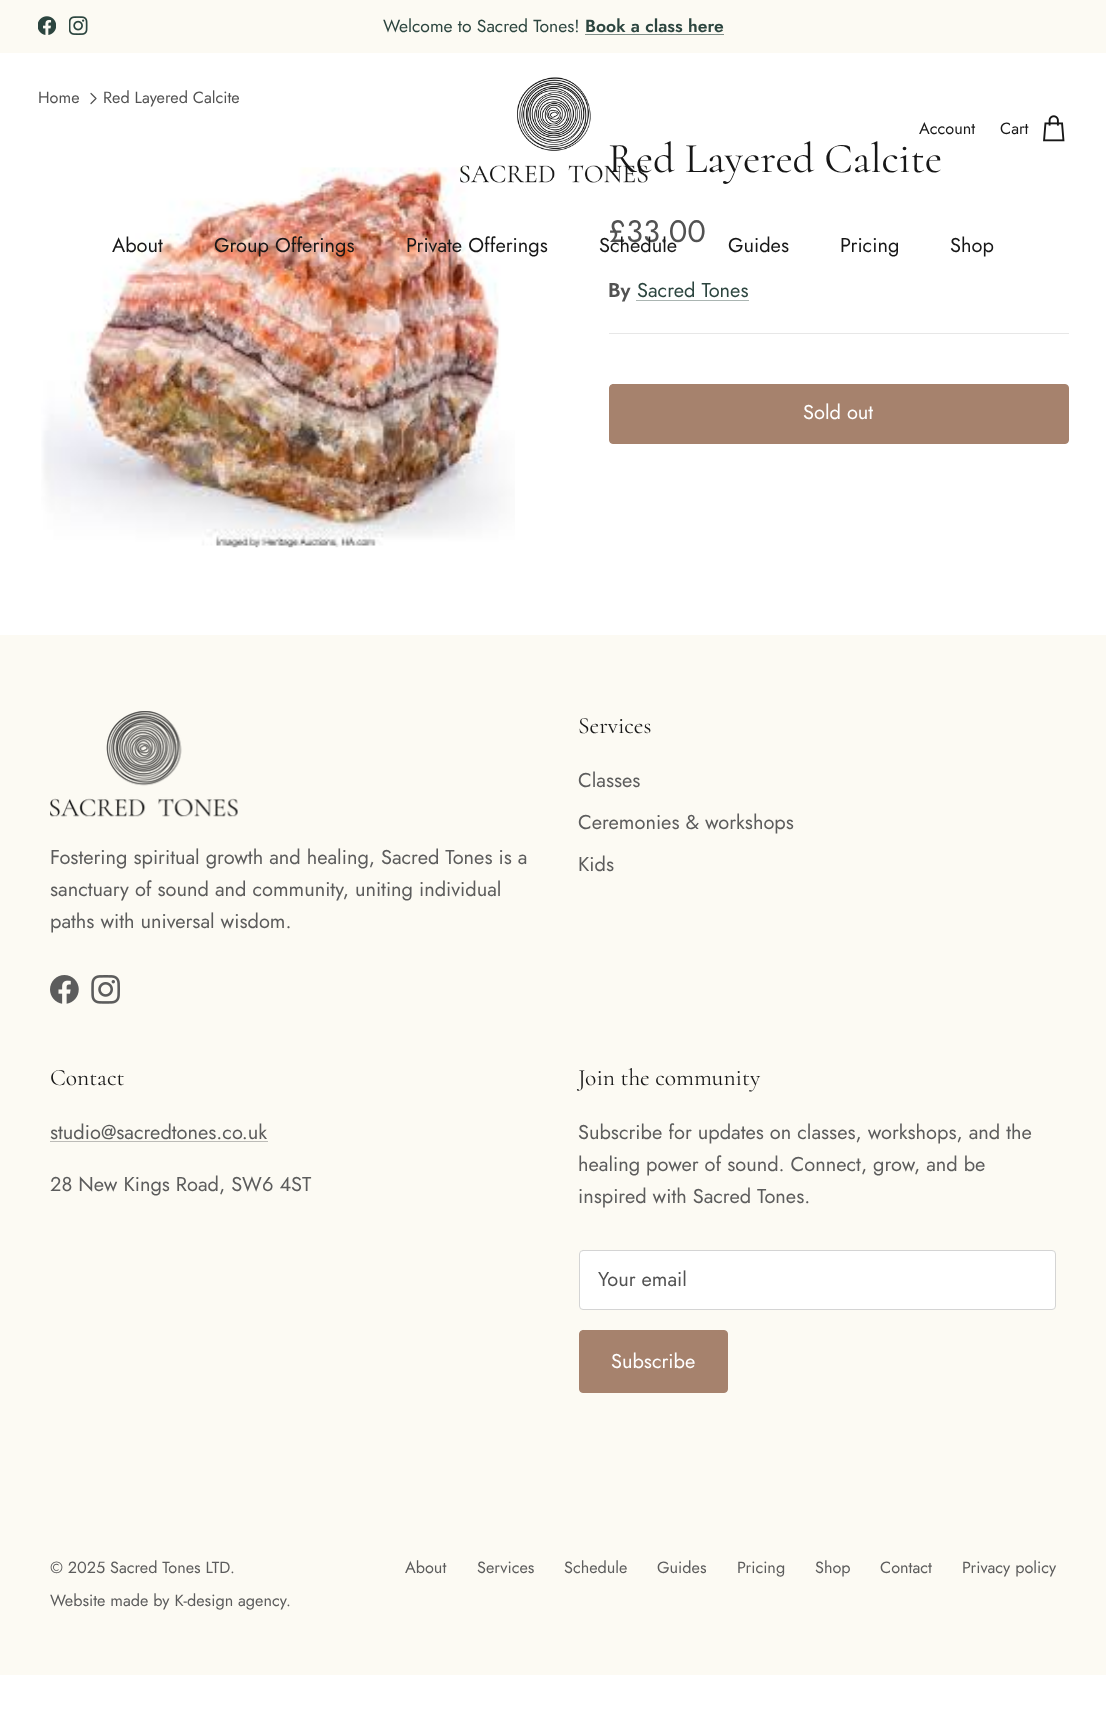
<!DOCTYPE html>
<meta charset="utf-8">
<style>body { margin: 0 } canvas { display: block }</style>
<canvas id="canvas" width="1106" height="1729"></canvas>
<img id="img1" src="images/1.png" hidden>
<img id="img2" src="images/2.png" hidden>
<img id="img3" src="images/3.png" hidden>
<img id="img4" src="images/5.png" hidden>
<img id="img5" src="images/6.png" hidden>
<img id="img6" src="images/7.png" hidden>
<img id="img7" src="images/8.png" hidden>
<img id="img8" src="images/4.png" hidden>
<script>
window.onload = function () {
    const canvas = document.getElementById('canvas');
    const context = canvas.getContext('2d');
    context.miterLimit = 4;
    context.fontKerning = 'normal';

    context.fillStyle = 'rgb(255, 255, 255)';
    context.fillRect(0, 0, 1106, 1729);
    context.fillStyle = 'rgb(252, 250, 243)';
    context.fillRect(0, 0, 1106, 53);
    context.drawImage(document.getElementById('img1'), 38, 16, 18, 19);
    context.drawImage(document.getElementById('img2'), 69, 16, 19, 19);
    context.fillStyle = 'rgb(127, 141, 135)';
    context.fillRect(585, 34, 139, 1);
    context.beginPath();
    context.moveTo(91, 103.5);
    context.lineTo(96, 98.5);
    context.lineTo(91, 93.5);
    context.strokeStyle = 'rgb(82, 82, 82)';
    context.lineWidth = 1.2;
    context.lineCap = 'round';
    context.lineJoin = 'round';
    context.stroke();
    context.drawImage(document.getElementById('img3'), 41, 167, 474, 381);
    context.fillStyle = 'rgb(171, 181, 178)';
    context.fillRect(636, 300, 113, 1);
    context.fillStyle = 'rgb(231, 231, 231)';
    context.fillRect(609, 333, 460, 1);
    context.fillStyle = 'rgb(166, 130, 109)';
    context.beginPath();
    context.roundRect(609.5, 384.5, 459, 59, 3.5);
    context.fill();
    context.strokeStyle = 'rgb(166, 130, 109)';
    context.lineWidth = 1;
    context.lineJoin = 'miter';
    context.stroke();
    context.drawImage(document.getElementById('img4'), 1043, 115, 22, 27);
    context.fillStyle = 'rgb(252, 250, 243)';
    context.fillRect(0, 635, 1106, 1040);
    context.drawImage(document.getElementById('img5'), 50, 711, 188, 106);
    context.drawImage(document.getElementById('img6'), 50, 975, 29, 29);
    context.drawImage(document.getElementById('img7'), 91, 975, 29, 29);
    context.fillStyle = 'rgb(188, 187, 183)';
    context.fillRect(50, 1141, 218, 1);
    context.fillStyle = 'rgb(255, 255, 255)';
    context.beginPath();
    context.roundRect(579.5, 1250.5, 476, 59, 3.5);
    context.fill();
    context.strokeStyle = 'rgb(212, 212, 212)';
    context.stroke();
    context.fillStyle = 'rgb(166, 130, 109)';
    context.beginPath();
    context.roundRect(579.5, 1330.5, 148, 62, 3.5);
    context.fill();
    context.strokeStyle = 'rgb(166, 130, 109)';
    context.stroke();
    context.font = '17.5px Jost';
    context.fillStyle = 'rgb(44, 69, 63)';
    context.fillText('Welcome to Sacred Tones!', 383, 32);
    context.font = '600 17.5px Jost';
    context.fillText('Book a class here', 585, 32);
    context.font = '16.25px Jost';
    context.fillStyle = 'rgb(82, 82, 82)';
    context.fillText('Home', 38, 103);
    context.fillText('Red Layered Calcite', 103, 103);
    context.font = '42.5px Cormorant';
    context.fillStyle = 'rgb(23, 23, 23)';
    context.fillText('Red Layered Calcite', 608, 172);
    context.font = '31px Jost';
    context.fillStyle = 'rgb(82, 82, 82)';
    context.fillText('£33.00', 608, 242);
    context.font = '600 20px Jost';
    context.fillText('By', 608, 297);
    context.font = '20px Jost';
    context.fillStyle = 'rgb(44, 69, 63)';
    context.fillText('Sacred Tones', 637, 297);
    context.fillStyle = 'rgb(255, 255, 255)';
    context.fillText('Sold out', 803, 419);
    context.drawImage(document.getElementById('img8'), 460, 77, 188, 106);
    context.font = '16.25px Jost';
    context.fillStyle = 'rgb(23, 23, 23)';
    context.fillText('Account', 919, 134);
    context.fillText('Cart', 1000, 134);
    context.font = '20px Jost';
    context.fillText('About', 112, 252);
    context.fillText('Group Offerings', 214, 252);
    context.fillText('Private Offerings', 406, 252);
    context.fillText('Schedule', 599, 252);
    context.fillText('Guides', 728, 252);
    context.fillText('Pricing', 840, 252);
    context.fillText('Shop', 950, 252);
    context.font = '23.5px Cormorant';
    context.fillText('Services', 578, 733);
    context.font = '20px Jost';
    context.fillStyle = 'rgb(92, 92, 92)';
    context.fillText('Classes', 578, 787);
    context.fillText('Ceremonies & workshops', 578, 829);
    context.fillText('Kids', 578, 871);
    context.fillText('Fostering spiritual growth and healing, Sacred Tones is a', 50, 864);
    context.fillText('sanctuary of sound and community, uniting individual', 50, 896);
    context.fillText('paths with universal wisdom.', 50, 928);
    context.font = '23.5px Cormorant';
    context.fillStyle = 'rgb(23, 23, 23)';
    context.fillText('Contact', 50, 1085);
    context.font = '20px Jost';
    context.fillStyle = 'rgb(92, 92, 92)';
    context.fillText('studio@sacredtones.co.uk', 50, 1139);
    context.fillText('28 New Kings Road, SW6 4ST', 50, 1191);
    context.font = '23.5px Cormorant';
    context.fillStyle = 'rgb(23, 23, 23)';
    context.fillText('Join the community', 578, 1085);
    context.font = '20px Jost';
    context.fillStyle = 'rgb(92, 92, 92)';
    context.fillText('Subscribe for updates on classes, workshops, and the', 578, 1139);
    context.fillText('healing power of sound. Connect, grow, and be', 578, 1171);
    context.fillText('inspired with Sacred Tones.', 578, 1203);
    context.fillStyle = 'rgb(82, 82, 82)';
    context.fillText('Your email', 598, 1286);
    context.fillStyle = 'rgb(255, 255, 255)';
    context.fillText('Subscribe', 611, 1368);
    context.font = '16.25px Jost';
    context.fillStyle = 'rgb(92, 92, 92)';
    context.fillText('© 2025', 50, 1573);
    context.fillText('Sacred Tones LTD', 110, 1573);
    context.fillText('.', 230, 1573);
    context.fillText('Website made by K-design agency.', 50, 1606);
    context.fillText('About', 405, 1573);
    context.fillText('Services', 477, 1573);
    context.fillText('Schedule', 564, 1573);
    context.fillText('Guides', 657, 1573);
    context.fillText('Pricing', 737, 1573);
    context.fillText('Shop', 815, 1573);
    context.fillText('Contact', 880, 1573);
    context.fillText('Privacy policy', 962, 1573);
};
</script>
